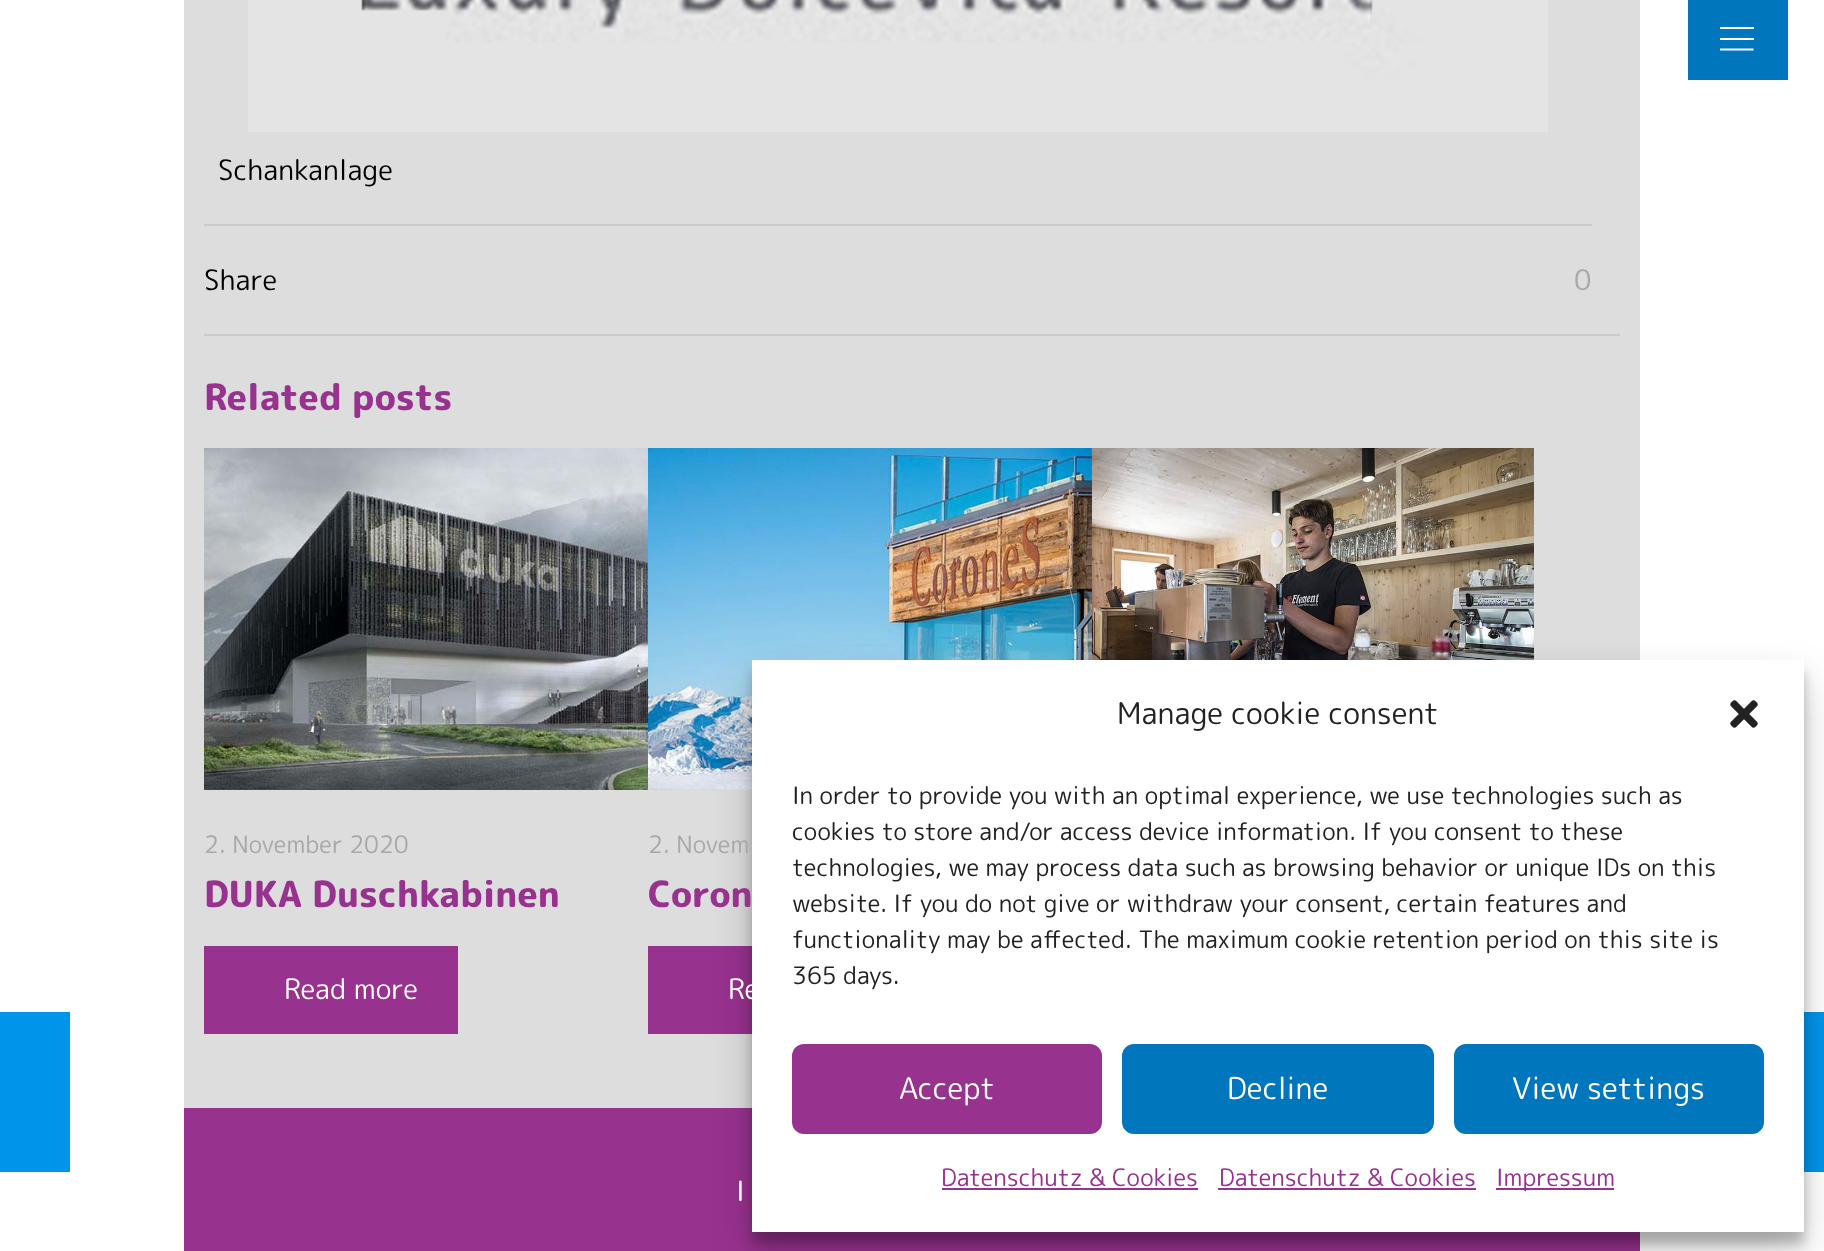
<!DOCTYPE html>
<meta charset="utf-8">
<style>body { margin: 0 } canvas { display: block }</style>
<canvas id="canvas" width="1824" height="1251"></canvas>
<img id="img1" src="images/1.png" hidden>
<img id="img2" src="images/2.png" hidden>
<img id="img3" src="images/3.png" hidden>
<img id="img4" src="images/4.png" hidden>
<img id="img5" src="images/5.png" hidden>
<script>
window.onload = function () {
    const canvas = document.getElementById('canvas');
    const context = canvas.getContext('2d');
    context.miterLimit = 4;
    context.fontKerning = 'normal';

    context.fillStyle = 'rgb(255, 255, 255)';
    context.fillRect(0, 0, 1824, 1251);
    context.fillStyle = 'rgb(0, 118, 188)';
    context.fillRect(1688, 0, 100, 80);
    context.fillStyle = 'rgb(255, 255, 255)';
    context.fillRect(1720, 27, 34, 2);
    context.fillRect(1720, 38, 34, 2);
    context.beginPath();
    context.moveTo(1720, 49.5);
    context.lineTo(1753.5, 49.5);
    context.strokeStyle = 'rgb(255, 255, 255)';
    context.lineWidth = 2.1;
    context.stroke();
    context.fillStyle = 'rgb(221, 221, 221)';
    context.fillRect(184, 0, 1456, 1108);
    context.drawImage(document.getElementById('img1'), 248, 0, 1300, 132);
    context.fillStyle = 'rgb(203, 203, 203)';
    context.fillRect(204, 224, 1388, 2);
    context.fillRect(204, 334, 1416, 2);
    context.drawImage(document.getElementById('img2'), 1092, 448, 442, 212);
    context.drawImage(document.getElementById('img3'), 204, 448, 444, 342);
    context.fillStyle = 'rgb(152, 50, 143)';
    context.fillRect(204, 946, 254, 88);
    context.drawImage(document.getElementById('img4'), 648, 448, 444, 342);
    context.fillRect(648, 946, 104, 88);
    context.fillRect(184, 1108, 1456, 143);
    context.fillStyle = 'rgb(0, 149, 235)';
    context.fillRect(0, 1012, 70, 160);
    context.fillRect(1804, 1012, 20, 160);
    context.fillStyle = 'rgba(0, 0, 0, 0.23)';
    context.filter = 'blur(6px)';
    context.beginPath();
    context.rect(752, 672, 1052, 572);
    context.fill();
    context.filter = 'none';
    context.fillStyle = 'rgba(0, 0, 0, 0.19)';
    context.filter = 'blur(20px)';
    context.beginPath();
    context.rect(752, 680, 1052, 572);
    context.fill();
    context.filter = 'none';
    context.fillStyle = 'rgb(255, 255, 255)';
    context.fillRect(752, 660, 1052, 572);
    context.drawImage(document.getElementById('img5'), 1730, 700, 28, 28);
    context.fillStyle = 'rgb(152, 50, 143)';
    context.beginPath();
    context.roundRect(793, 1045, 308, 88, 11);
    context.fill();
    context.strokeStyle = 'rgb(152, 50, 143)';
    context.lineWidth = 2;
    context.stroke();
    context.fillStyle = 'rgb(0, 118, 188)';
    context.beginPath();
    context.roundRect(1123, 1045, 310, 88, 11);
    context.fill();
    context.strokeStyle = 'rgb(0, 118, 188)';
    context.stroke();
    context.beginPath();
    context.roundRect(1455, 1045, 308, 88, 11);
    context.fill();
    context.stroke();
    context.fillStyle = 'rgb(152, 50, 143)';
    context.fillRect(942, 1188, 256, 2);
    context.fillRect(1218, 1188, 258, 2);
    context.fillRect(1496, 1188, 118, 2);
    context.font = '28px "Rounded Mplus 1c"';
    context.fillStyle = 'rgb(0, 0, 0)';
    context.fillText('Schankanlage', 218, 180);
    context.fillText('Share', 204, 290);
    context.fillStyle = 'rgb(168, 168, 168)';
    context.fillText('0', 1574, 290);
    context.font = '800 36px "Rounded Mplus 1c"';
    context.fillStyle = 'rgb(152, 50, 143)';
    context.fillText('Related posts', 204, 410);
    context.font = '24px "Rounded Mplus 1c"';
    context.fillStyle = 'rgb(168, 168, 168)';
    context.fillText('2. November 2020', 204, 853);
    context.font = '800 36px "Rounded Mplus 1c"';
    context.fillStyle = 'rgb(152, 50, 143)';
    context.fillText('DUKA Duschkabinen', 204, 907);
    context.font = '28px "Rounded Mplus 1c"';
    context.fillStyle = 'rgb(255, 255, 255)';
    context.fillText('Read more', 284, 999);
    context.font = '24px "Rounded Mplus 1c"';
    context.fillStyle = 'rgb(168, 168, 168)';
    context.fillText('2. Novem', 648, 853);
    context.font = '800 36px "Rounded Mplus 1c"';
    context.fillStyle = 'rgb(152, 50, 143)';
    context.fillText('Coron', 648, 907);
    context.font = '28px "Rounded Mplus 1c"';
    context.fillStyle = 'rgb(255, 255, 255)';
    context.fillText('Re', 728, 999);
    context.fillText('I', 736, 1201);
    context.font = '30px "Rounded Mplus 1c"';
    context.fillStyle = 'rgb(34, 34, 34)';
    context.fillText('Manage cookie consent', 1117, 724);
    context.font = '24px "Rounded Mplus 1c"';
    context.fillText('In order to provide you with an optimal experience, we use technologies such as', 792, 804);
    context.fillText('cookies to store and/or access device information. If you consent to these', 792, 840);
    context.fillText('technologies, we may process data such as browsing behavior or unique IDs on this', 792, 876);
    context.fillText('website. If you do not give or withdraw your consent, certain features and', 792, 912);
    context.fillText('functionality may be affected. The maximum cookie retention period on this site is', 792, 948);
    context.fillText('365 days.', 792, 984);
    context.font = '30px "Rounded Mplus 1c"';
    context.fillStyle = 'rgb(255, 255, 255)';
    context.fillText('Accept', 899, 1099);
    context.fillText('Decline', 1227, 1099);
    context.fillText('View settings', 1512, 1099);
    context.font = '24px "Rounded Mplus 1c"';
    context.fillStyle = 'rgb(152, 50, 143)';
    context.fillText('Datenschutz & Cookies', 941, 1186);
    context.fillText('Datenschutz & Cookies', 1219, 1186);
    context.fillText('Impressum', 1496, 1186);
};
</script>
